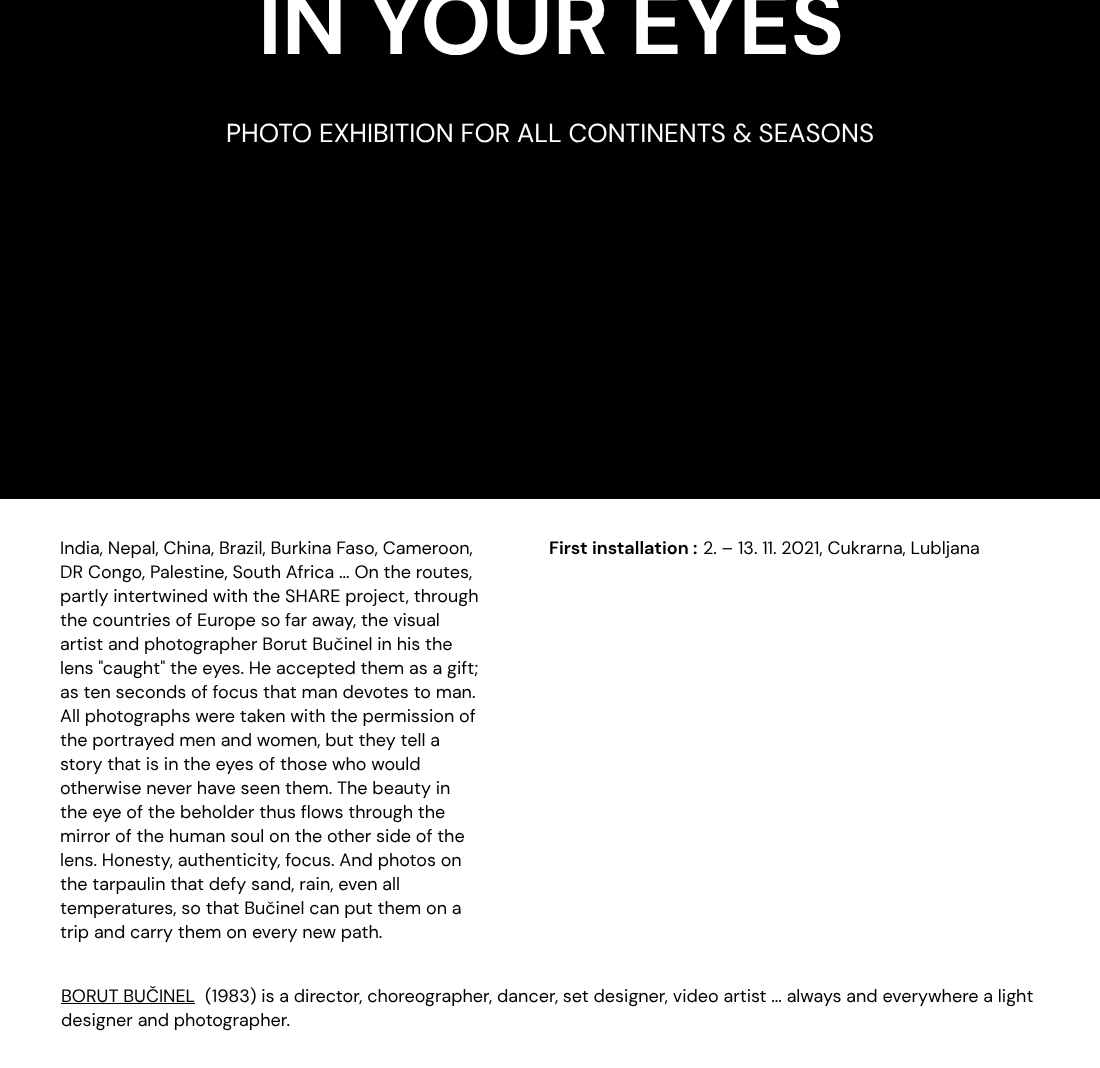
<!DOCTYPE html>
<meta charset="utf-8">
<style>body { margin: 0 } canvas { display: block }</style>
<canvas id="canvas" width="1100" height="1068"></canvas>
<script>
window.onload = function () {
    const canvas = document.getElementById('canvas');
    const context = canvas.getContext('2d');
    context.miterLimit = 4;
    context.fontKerning = 'normal';

    context.fillStyle = 'rgb(255, 255, 255)';
    context.fillRect(0, 0, 1100, 1068);
    context.fillStyle = 'rgb(0, 0, 0)';
    context.fillRect(0, 0, 1100, 499);
    context.fillRect(61, 1003, 134, 1);
    context.font = 'bold 90px DM Sans';
    context.fillStyle = 'rgb(255, 255, 255)';
    context.fillText('IN YOUR EYES', 258, 54);
    context.font = '26px DM Sans';
    context.fillText('PHOTO EXHIBITION FOR ALL CONTINENTS & SEASONS', 226, 142);
    context.font = '18px DM Sans';
    context.fillStyle = 'rgb(0, 0, 0)';
    context.fillText('India, Nepal, China, Brazil, Burkina Faso, Cameroon,', 60, 554);
    context.fillText('DR Congo, Palestine, South Africa ... On the routes,', 60, 578);
    context.fillText('partly intertwined with the SHARE project, through', 60, 602);
    context.fillText('the countries of Europe so far away, the visual', 60, 626);
    context.fillText('artist and photographer Borut Bučinel in his the', 60, 650);
    context.fillText('lens "caught" the eyes. He accepted them as a gift;', 60, 674);
    context.fillText('as ten seconds of focus that man devotes to man.', 60, 698);
    context.fillText('All photographs were taken with the permission of', 60, 722);
    context.fillText('the portrayed men and women, but they tell a', 60, 746);
    context.fillText('story that is in the eyes of those who would', 60, 770);
    context.fillText('otherwise never have seen them. The beauty in', 60, 794);
    context.fillText('the eye of the beholder thus flows through the', 60, 818);
    context.fillText('mirror of the human soul on the other side of the', 60, 842);
    context.fillText('lens. Honesty, authenticity, focus. And photos on', 60, 866);
    context.fillText('the tarpaulin that defy sand, rain, even all', 60, 890);
    context.fillText('temperatures, so that Bučinel can put them on a', 60, 914);
    context.fillText('trip and carry them on every new path.', 60, 938);
    context.font = 'bold 18px DM Sans';
    context.fillText('First installation', 549, 554);
    context.fillText(':', 693, 554);
    context.font = '18px DM Sans';
    context.fillText('2. – 13. 11. 2021, Cukrarna, Lubljana', 703, 554);
    context.fillText('BORUT BUČINEL', 61, 1002);
    context.fillText('(1983) is a director, choreographer, dancer, set designer, video artist ... always and everywhere a light', 205, 1002);
    context.fillText('designer and photographer.', 61, 1026);
};
</script>
